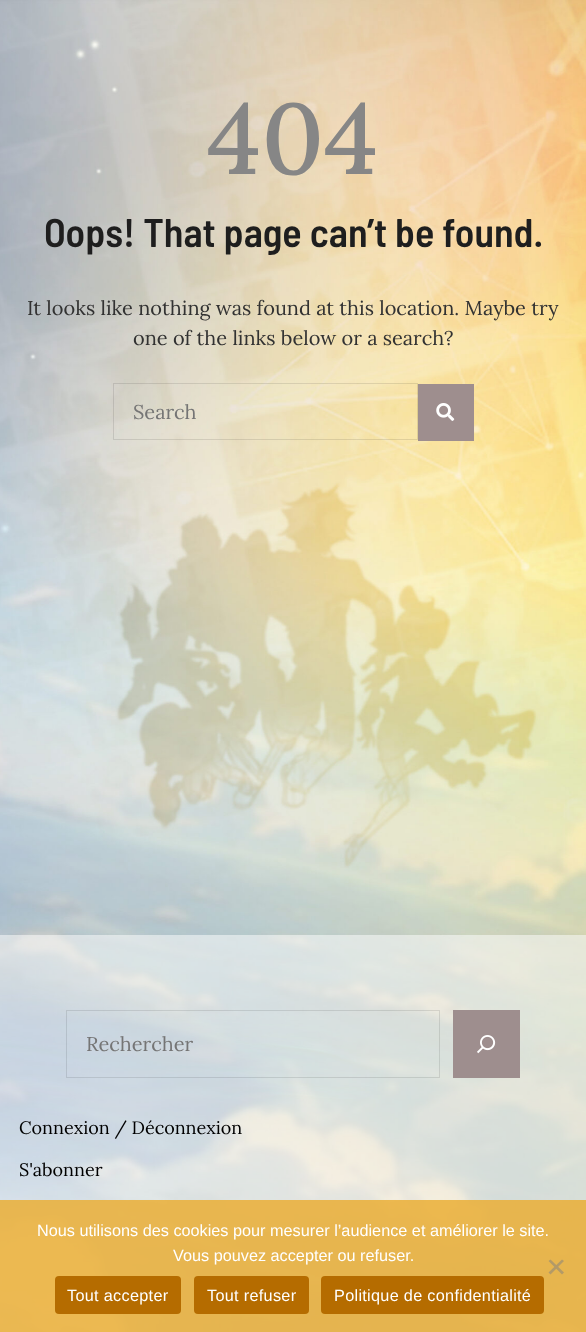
<!DOCTYPE html>
<meta charset="utf-8">
<style>body { margin: 0 } canvas { display: block }</style>
<canvas id="canvas" width="586" height="1332"></canvas>
<img id="img1" src="images/1.png" hidden>
<img id="img2" src="images/2.png" hidden>
<img id="img3" src="images/3.png" hidden>
<script>
window.onload = function () {
    const canvas = document.getElementById('canvas');
    const context = canvas.getContext('2d');
    context.miterLimit = 4;
    context.fontKerning = 'normal';

    context.fillStyle = 'rgb(255, 255, 255)';
    context.fillRect(0, 0, 586, 1332);
    context.drawImage(document.getElementById('img1'), 0, 0, 586, 1332);
    context.strokeStyle = 'rgba(0, 0, 0, 0.1)';
    context.strokeRect(113.5, 383.5, 304, 56);
    context.fillStyle = 'rgb(158, 142, 142)';
    context.fillRect(418, 384, 56, 57);
    context.drawImage(document.getElementById('img2'), 436, 403, 19, 18);
    context.fillStyle = 'rgba(255, 255, 255, 0.5)';
    context.fillRect(0, 935, 586, 397);
    context.strokeRect(66.5, 1010.5, 373, 67);
    context.fillStyle = 'rgb(158, 142, 142)';
    context.fillRect(453, 1010, 67, 68);
    context.drawImage(document.getElementById('img3'), 477, 1035, 19, 19);
    context.fillStyle = 'rgba(234, 174, 53, 0.85)';
    context.fillRect(0, 1200, 586, 132);
    context.fillStyle = 'rgb(179, 154, 103)';
    context.beginPath();
    context.moveTo(562, 1259.5);
    context.lineTo(564, 1261);
    context.lineTo(550.5, 1274.5);
    context.lineTo(548.5, 1272.5);
    context.closePath();
    context.fill();
    context.beginPath();
    context.moveTo(548.5, 1261);
    context.lineTo(550.5, 1259.5);
    context.lineTo(564, 1272.5);
    context.lineTo(562, 1274.5);
    context.closePath();
    context.fill();
    context.fillStyle = 'rgb(181, 108, 0)';
    context.beginPath();
    context.roundRect(55, 1276, 126, 38, 4);
    context.fill();
    context.beginPath();
    context.roundRect(194, 1276, 115, 38, 4);
    context.fill();
    context.beginPath();
    context.roundRect(321, 1276, 223, 38, 4);
    context.fill();
    context.font = '500 100px Lora';
    context.fillStyle = 'rgb(134, 134, 134)';
    context.fillText('404', 207, 174);
    context.font = '600 40px Barlow Semi Condensed';
    context.fillStyle = 'rgb(30, 30, 30)';
    context.fillText('Oops! That page can’t be found.', 44, 247);
    context.font = '20px Lora';
    context.fillStyle = 'rgb(50, 50, 50)';
    context.fillText('It looks like nothing was found at this location. Maybe try', 27, 315);
    context.fillText('one of the links below or a search?', 133, 345);
    context.fillStyle = 'rgb(117, 117, 117)';
    context.fillText('Search', 133, 419);
    context.fillText('Rechercher', 86, 1051);
    context.font = '18px Lora';
    context.fillStyle = 'rgb(0, 0, 0)';
    context.fillText('Connexion / Déconnexion', 19, 1134);
    context.fillText('S\'abonner', 19, 1176);
    context.font = '16.25px Liberation Sans';
    context.fillStyle = 'rgb(255, 255, 255)';
    context.fillText('Nous utilisons des cookies pour mesurer l’audience et améliorer le site.', 37, 1236);
    context.fillText('Vous pouvez accepter ou refuser.', 173, 1261);
    context.letterSpacing = '0.3px';
    context.fillText('Tout accepter', 67, 1301);
    context.fillText('Tout refuser', 207, 1301);
    context.fillText('Politique de confidentialité', 334, 1301);
};
</script>
